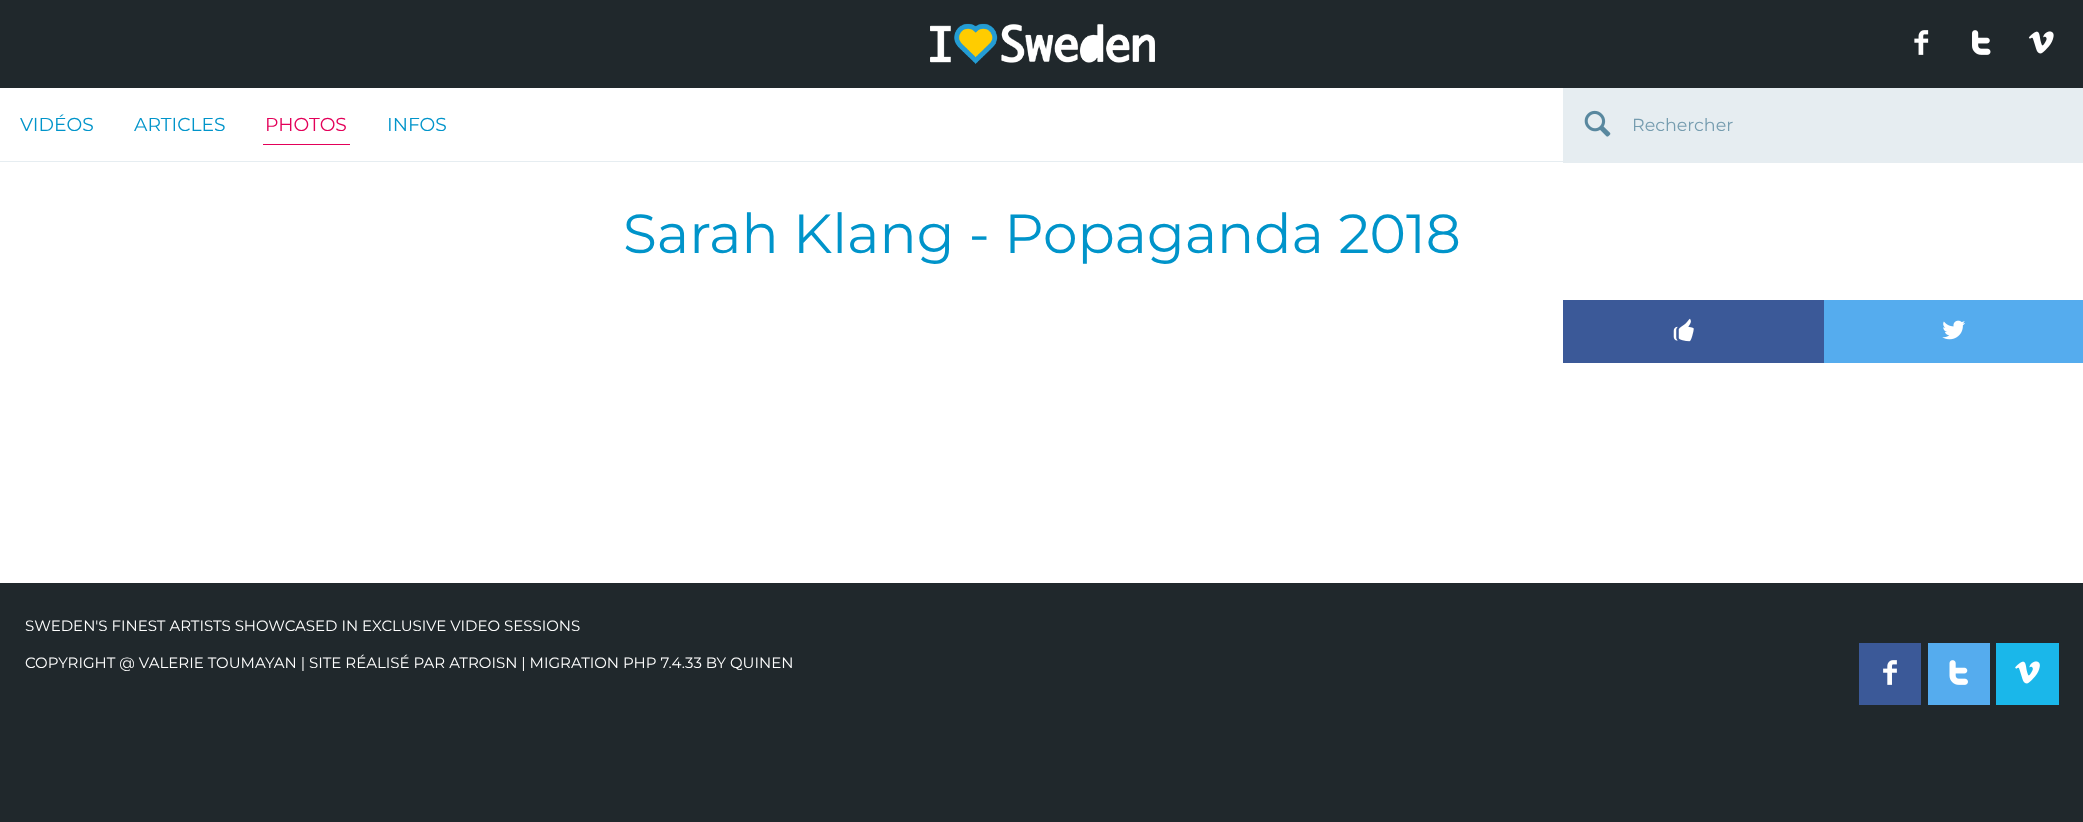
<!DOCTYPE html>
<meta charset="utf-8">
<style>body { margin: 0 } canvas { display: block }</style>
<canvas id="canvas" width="2083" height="822"></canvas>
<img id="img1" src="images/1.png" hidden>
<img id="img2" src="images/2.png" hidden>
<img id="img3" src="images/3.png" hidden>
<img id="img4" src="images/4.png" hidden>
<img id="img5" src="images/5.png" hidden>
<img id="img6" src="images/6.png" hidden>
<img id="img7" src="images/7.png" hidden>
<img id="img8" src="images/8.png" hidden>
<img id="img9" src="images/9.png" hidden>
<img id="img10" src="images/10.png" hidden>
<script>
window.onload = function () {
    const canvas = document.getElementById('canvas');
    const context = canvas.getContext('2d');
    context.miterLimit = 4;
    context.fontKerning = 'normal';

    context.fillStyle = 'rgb(32, 40, 44)';
    context.fillRect(0, 0, 2083, 822);
    context.drawImage(document.getElementById('img1'), 930, 23, 225, 41);
    context.drawImage(document.getElementById('img2'), 1914, 30, 15, 25);
    context.drawImage(document.getElementById('img3'), 1972, 30, 19, 25);
    context.drawImage(document.getElementById('img4'), 2028, 31, 26, 23);
    context.fillStyle = 'rgb(255, 255, 255)';
    context.fillRect(0, 88, 1563, 75);
    context.fillStyle = 'rgb(230, 237, 241)';
    context.fillRect(0, 161, 1563, 1);
    context.fillStyle = 'rgb(227, 0, 89)';
    context.fillRect(263, 144, 87, 1);
    context.fillStyle = 'rgb(230, 237, 241)';
    context.fillRect(1563, 88, 520, 75);
    context.drawImage(document.getElementById('img5'), 1584, 110, 27, 27);
    context.fillStyle = 'rgb(255, 255, 255)';
    context.fillRect(0, 163, 2083, 420);
    context.fillStyle = 'rgb(59, 89, 152)';
    context.fillRect(1563, 300, 261, 63);
    context.drawImage(document.getElementById('img6'), 1673, 318, 21, 24);
    context.fillStyle = 'rgb(85, 172, 238)';
    context.fillRect(1824, 300, 259, 63);
    context.drawImage(document.getElementById('img7'), 1942, 320, 23, 20);
    context.fillStyle = 'rgb(59, 89, 152)';
    context.fillRect(1859, 643, 62, 62);
    context.drawImage(document.getElementById('img8'), 1883, 660, 14, 25);
    context.fillStyle = 'rgb(85, 172, 238)';
    context.fillRect(1928, 643, 62, 62);
    context.drawImage(document.getElementById('img9'), 1949, 660, 19, 25);
    context.fillStyle = 'rgb(26, 183, 234)';
    context.fillRect(1996, 643, 63, 62);
    context.drawImage(document.getElementById('img10'), 2015, 661, 25, 23);
    context.font = '18.75px Montserrat';
    context.fillStyle = 'rgb(0, 148, 202)';
    context.fillText('VIDÉOS', 20, 131);
    context.fillText('ARTICLES', 134, 131);
    context.fillStyle = 'rgb(227, 0, 89)';
    context.fillText('PHOTOS', 265, 131);
    context.fillStyle = 'rgb(0, 148, 202)';
    context.fillText('INFOS', 387, 131);
    context.font = '17.5px Montserrat';
    context.fillStyle = 'rgb(117, 156, 175)';
    context.fillText('Rechercher', 1632, 131);
    context.font = '55px Montserrat';
    context.fillStyle = 'rgb(0, 148, 202)';
    context.fillText('Sarah Klang - Popaganda 2018', 623, 253);
    context.font = '15px Montserrat';
    context.fillStyle = 'rgb(255, 255, 255)';
    context.fillText('SWEDEN\'S FINEST ARTISTS SHOWCASED IN EXCLUSIVE VIDEO SESSIONS', 25, 631);
    context.fillText('COPYRIGHT @ VALERIE TOUMAYAN | SITE RÉALISÉ PAR ATROISN | MIGRATION PHP 7.4.33 BY QUINEN', 25, 668);
};
</script>
